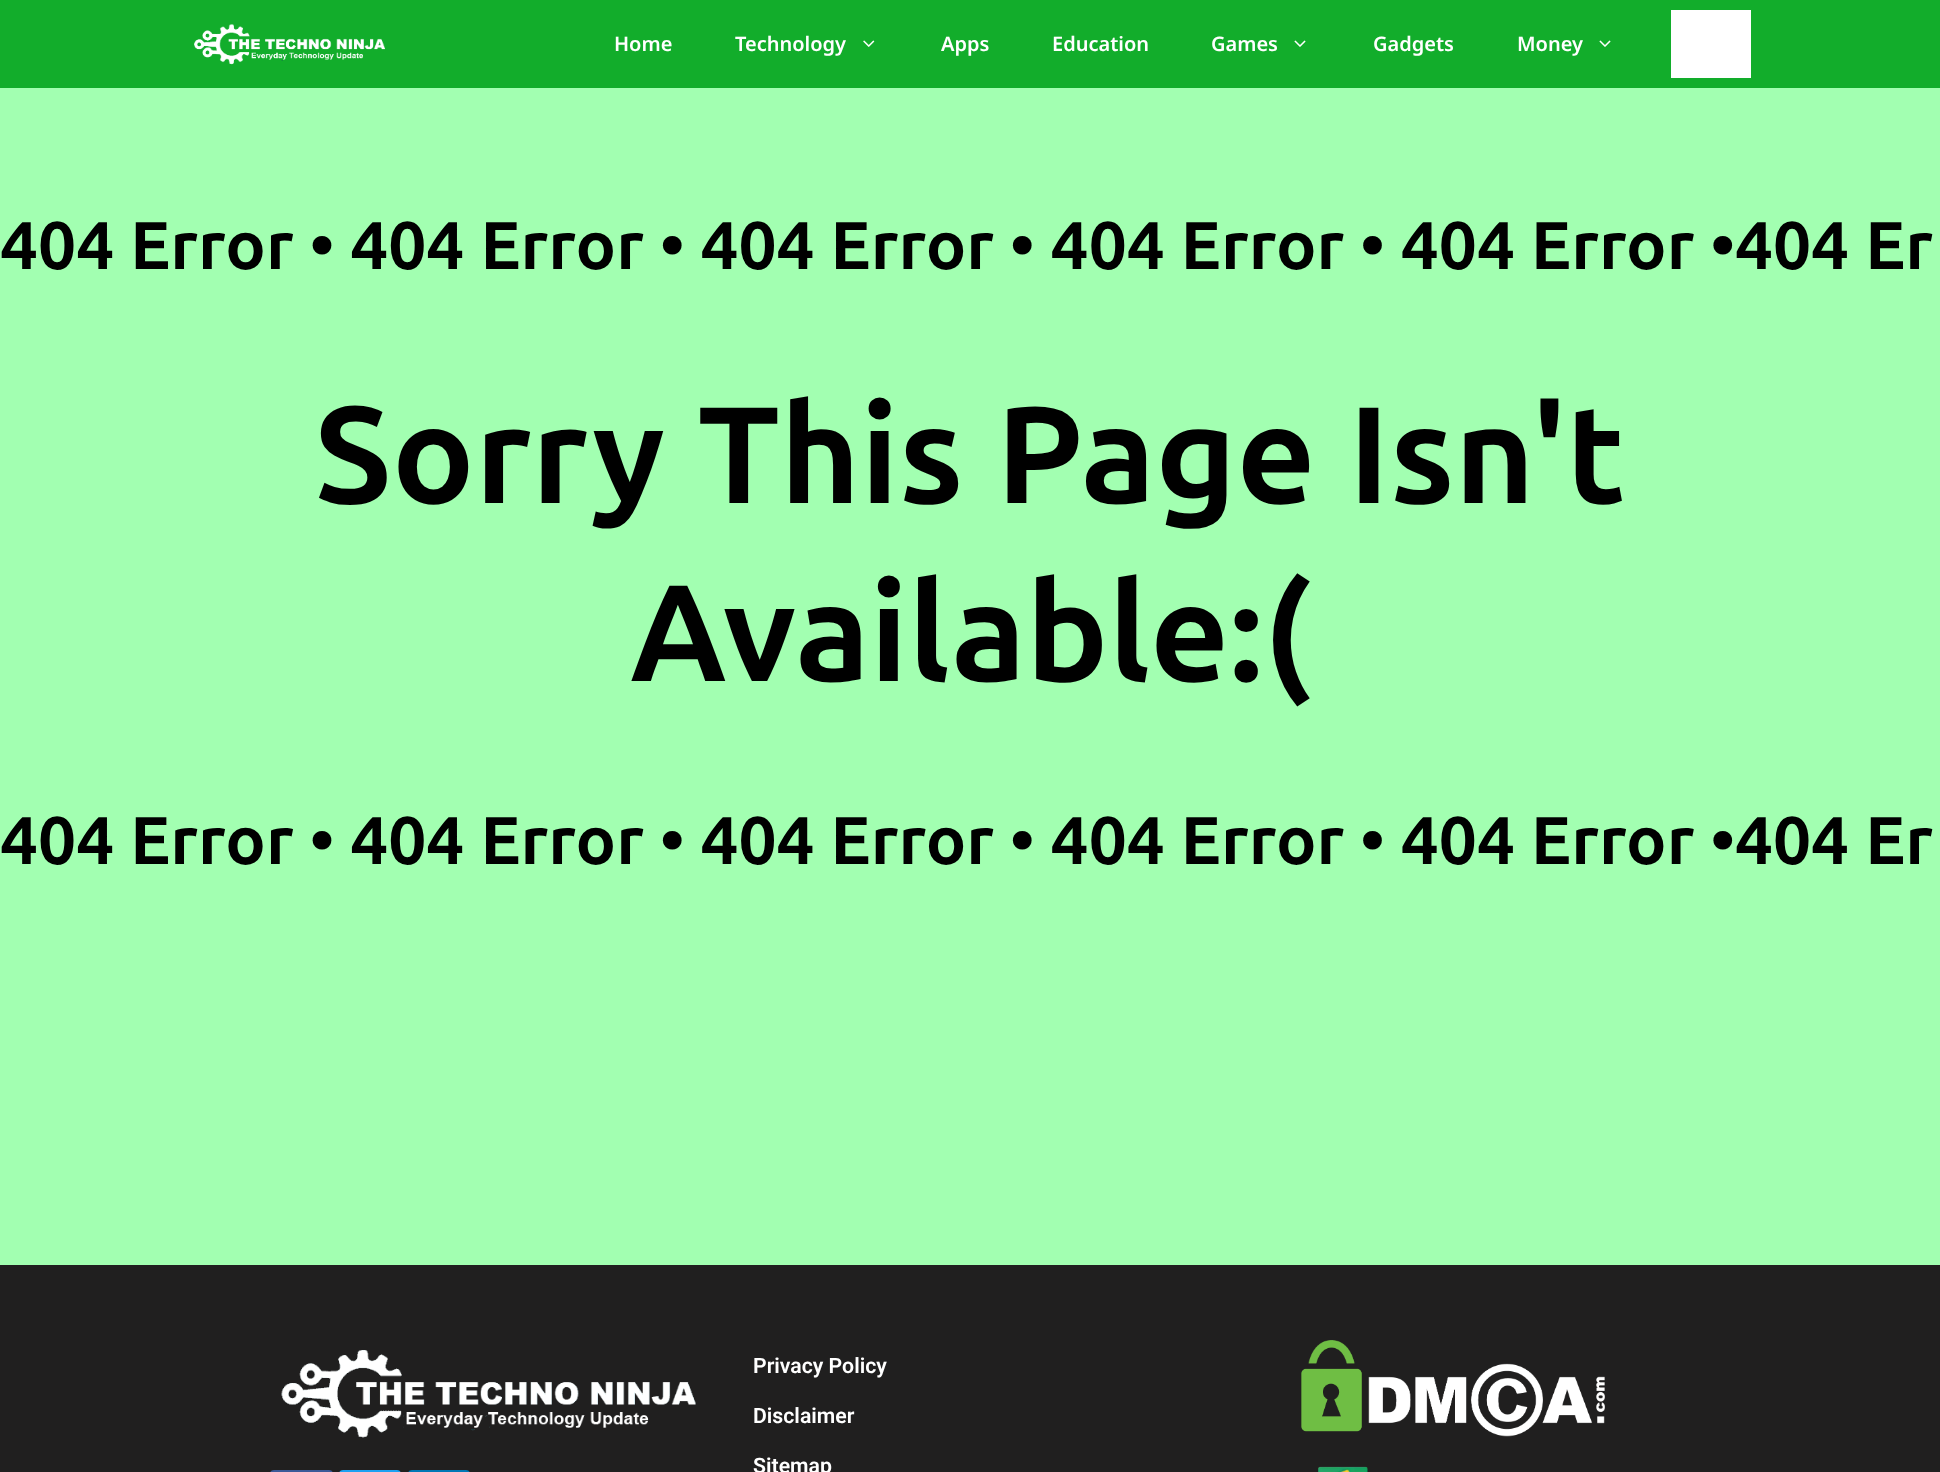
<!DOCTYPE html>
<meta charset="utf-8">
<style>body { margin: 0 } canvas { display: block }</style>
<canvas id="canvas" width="1940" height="1472"></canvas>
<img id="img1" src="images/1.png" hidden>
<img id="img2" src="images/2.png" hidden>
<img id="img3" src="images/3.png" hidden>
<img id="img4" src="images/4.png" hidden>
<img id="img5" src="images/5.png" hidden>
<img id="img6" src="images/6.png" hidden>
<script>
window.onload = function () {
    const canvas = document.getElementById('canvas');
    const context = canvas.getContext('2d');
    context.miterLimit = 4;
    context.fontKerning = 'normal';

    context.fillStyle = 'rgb(18, 173, 43)';
    context.fillRect(0, 0, 1940, 1472);
    context.drawImage(document.getElementById('img1'), 194, 24, 191, 41);
    context.drawImage(document.getElementById('img2'), 863, 40, 12, 7);
    context.drawImage(document.getElementById('img3'), 1294, 40, 12, 7);
    context.drawImage(document.getElementById('img3'), 1599, 40, 12, 7);
    context.fillStyle = 'rgb(255, 255, 255)';
    context.fillRect(1671, 10, 80, 68);
    context.fillStyle = 'rgb(162, 255, 177)';
    context.fillRect(0, 88, 1940, 1177);
    context.fillStyle = 'rgb(32, 31, 31)';
    context.fillRect(0, 1265, 1940, 207);
    context.drawImage(document.getElementById('img4'), 281, 1350, 415, 88);
    context.fillStyle = 'rgb(59, 89, 152)';
    context.beginPath();
    context.roundRect(270, 1470, 63, 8, 6);
    context.fill();
    context.fillStyle = 'rgb(29, 161, 242)';
    context.beginPath();
    context.roundRect(339, 1470, 62, 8, 6);
    context.fill();
    context.fillStyle = 'rgb(0, 119, 181)';
    context.beginPath();
    context.roundRect(408, 1470, 62, 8, 6);
    context.fill();
    context.drawImage(document.getElementById('img5'), 1301, 1340, 304, 97);
    context.drawImage(document.getElementById('img6'), 1318, 1466, 50, 6);
    context.font = '600 20px Noto Sans';
    context.fillStyle = 'rgb(255, 255, 255)';
    context.fillText('Home', 614, 51);
    context.fillText('Technology', 735, 51);
    context.fillText('Apps', 941, 51);
    context.fillText('Education', 1052, 51);
    context.fillText('Games', 1211, 51);
    context.fillText('Gadgets', 1373, 51);
    context.fillText('Money', 1517, 51);
    context.font = 'bold 67.5px Ubuntu';
    context.fillStyle = 'rgb(0, 0, 0)';
    context.fillText('404 Error • 404 Error • 404 Error • 404 Error • 404 Error •404 Er', 0, 269);
    context.font = 'bold 137.5px Ubuntu';
    context.fillText('Sorry This Page Isn\'t', 314, 503);
    context.fillText('Available:(', 630, 681);
    context.font = 'bold 67.5px Ubuntu';
    context.fillText('404 Error • 404 Error • 404 Error • 404 Error • 404 Error •404 Er', 0, 864);
    context.font = '600 21.25px Roboto';
    context.fillStyle = 'rgb(255, 255, 255)';
    context.fillText('Privacy Policy', 753, 1373);
    context.fillText('Disclaimer', 753, 1423);
    context.fillText('Sitemap', 753, 1473);
};
</script>
